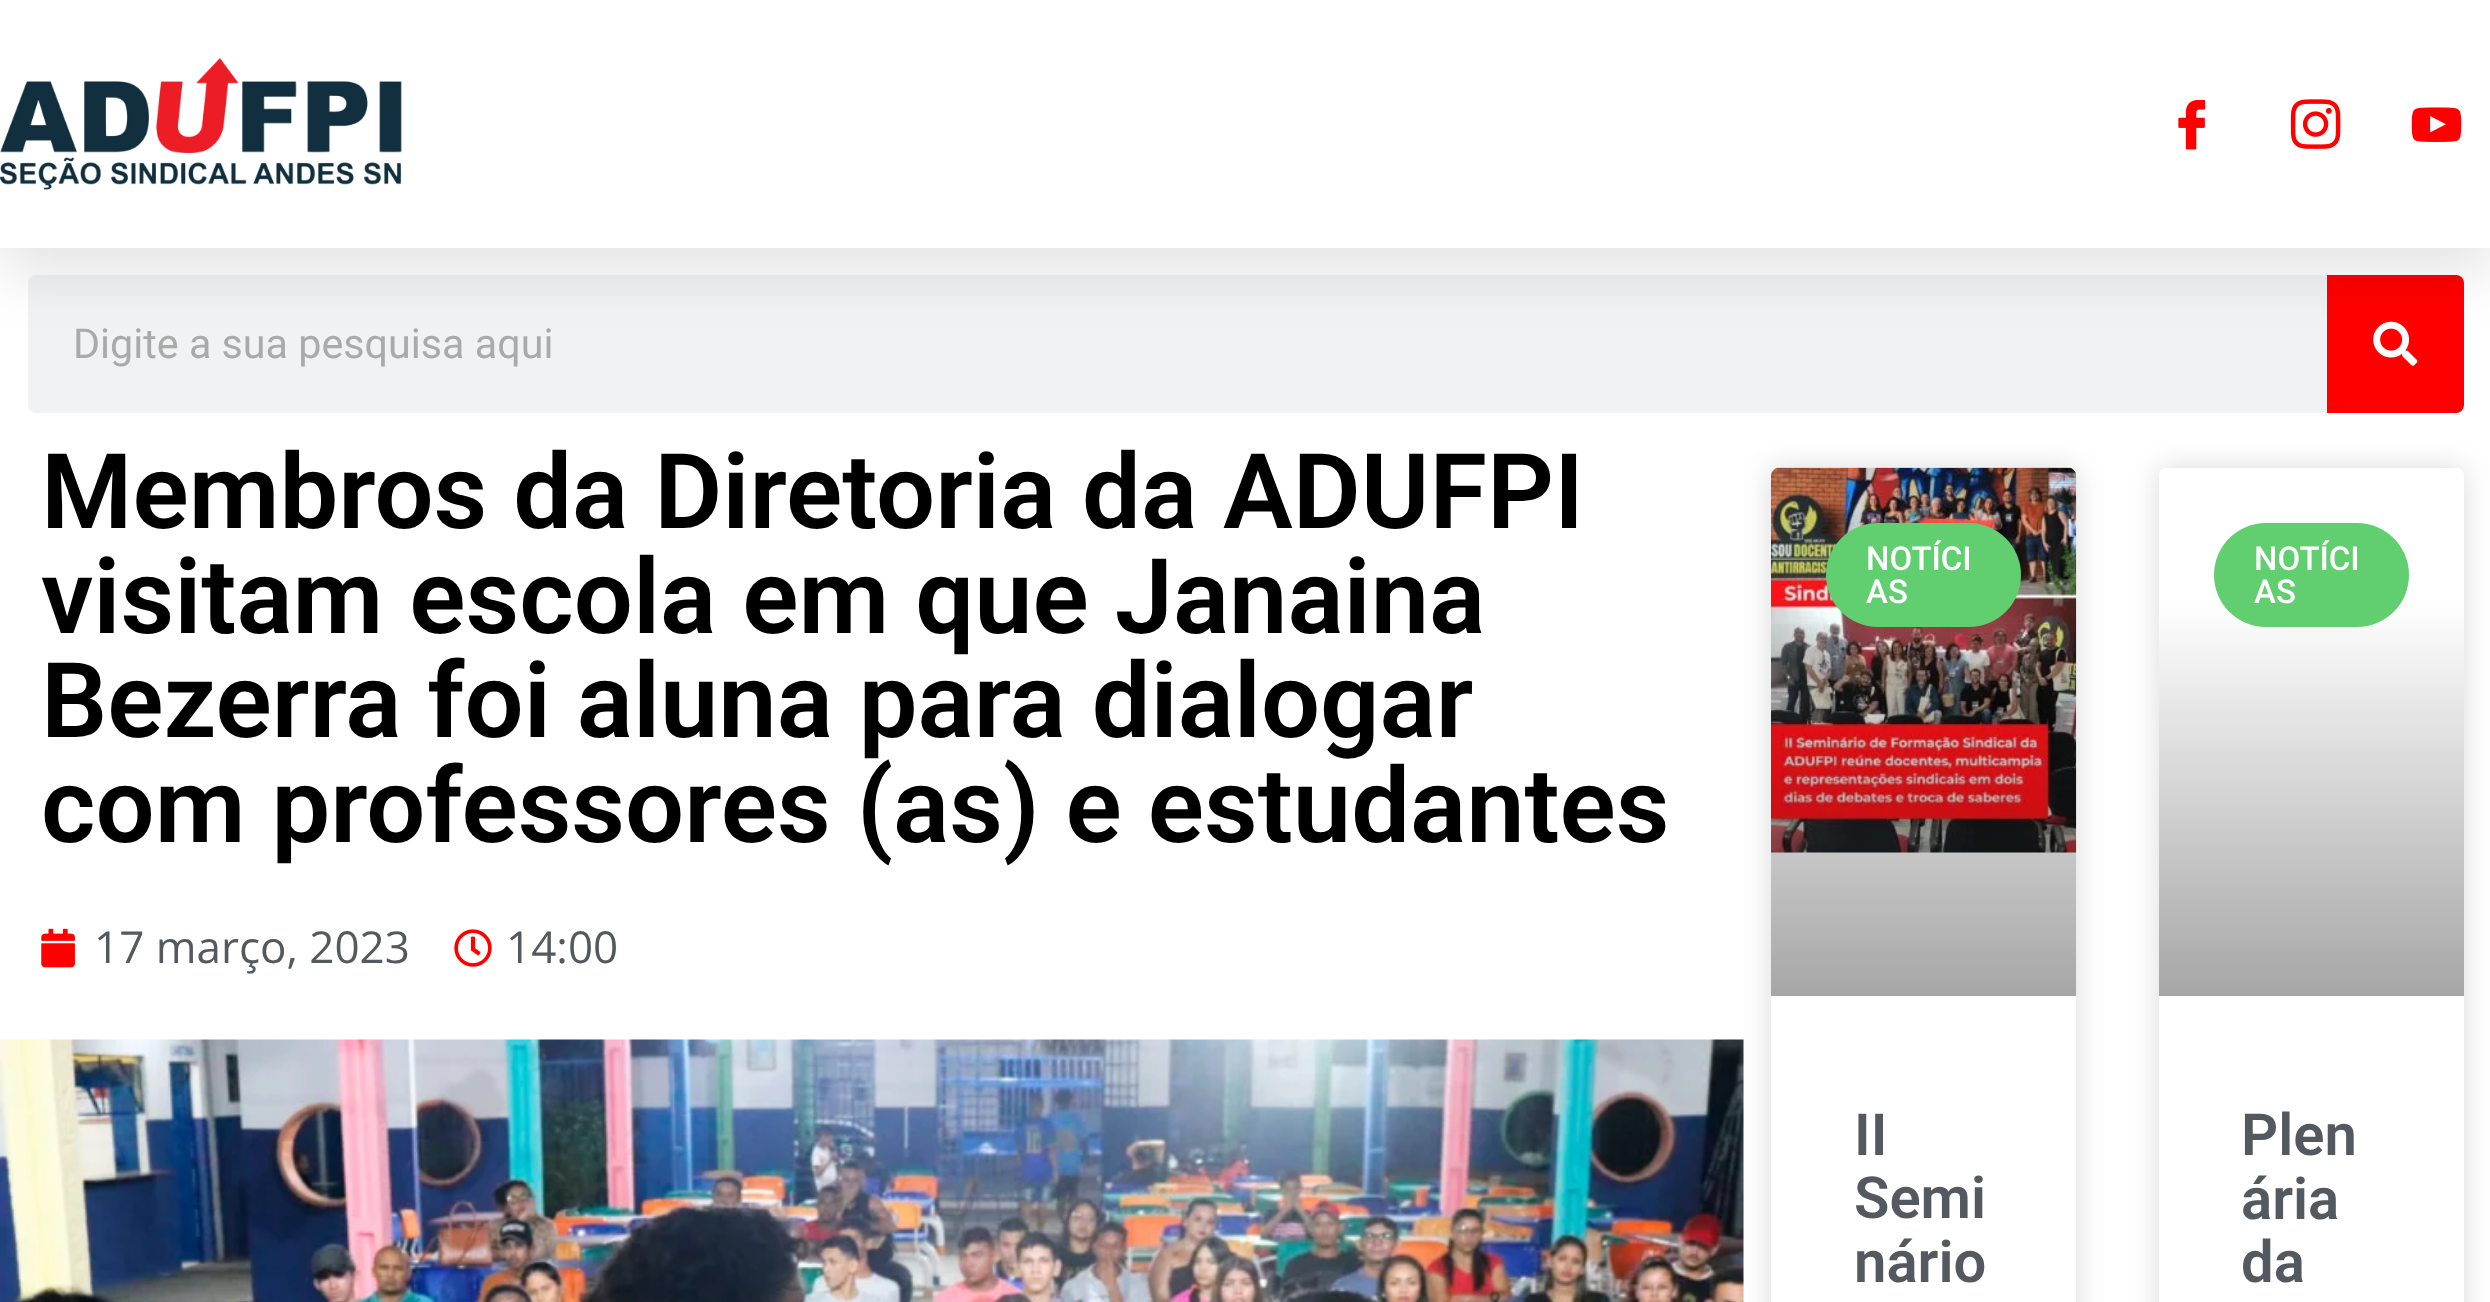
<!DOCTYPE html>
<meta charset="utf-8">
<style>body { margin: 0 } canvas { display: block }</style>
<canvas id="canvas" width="2490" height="1302"></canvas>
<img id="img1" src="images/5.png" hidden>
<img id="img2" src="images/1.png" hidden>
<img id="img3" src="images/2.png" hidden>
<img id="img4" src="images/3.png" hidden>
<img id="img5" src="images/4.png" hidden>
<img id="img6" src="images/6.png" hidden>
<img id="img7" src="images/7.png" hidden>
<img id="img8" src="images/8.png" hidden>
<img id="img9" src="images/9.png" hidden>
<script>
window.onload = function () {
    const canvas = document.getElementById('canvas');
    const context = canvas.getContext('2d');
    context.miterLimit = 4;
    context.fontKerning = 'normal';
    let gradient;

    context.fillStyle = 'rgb(255, 255, 255)';
    context.fillRect(0, 0, 2490, 1302);
    context.fillStyle = 'rgb(241, 242, 243)';
    context.beginPath();
    context.roundRect(28, 275, 2436, 138, 8);
    context.fill();
    context.fillStyle = 'rgb(255, 0, 0)';
    context.beginPath();
    context.roundRect(2327, 275, 137, 138, [0, 8, 8, 0]);
    context.fill();
    context.drawImage(document.getElementById('img1'), 2373, 321, 45, 45);
    context.fillStyle = 'rgba(0, 0, 0, 0.1)';
    context.filter = 'blur(27.5px)';
    context.beginPath();
    context.rect(0, 28, 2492, 247);
    context.fill();
    context.filter = 'none';
    context.fillStyle = 'rgb(255, 255, 255)';
    context.fillRect(0, 0, 2490, 248);
    context.drawImage(document.getElementById('img2'), 0, 57, 402, 133);
    context.drawImage(document.getElementById('img3'), 2178, 100, 28, 50);
    context.drawImage(document.getElementById('img4'), 2290, 99, 51, 50);
    context.drawImage(document.getElementById('img5'), 2411, 107, 51, 35);
    context.drawImage(document.getElementById('img6'), 41, 928, 34, 40);
    context.drawImage(document.getElementById('img7'), 454, 929, 38, 38);
    context.drawImage(document.getElementById('img8'), 0, 1039, 1744, 263);
    context.fillStyle = 'rgba(0, 0, 0, 0.15)';
    context.filter = 'blur(14px)';
    context.beginPath();
    context.roundRect(1771, 468, 305, 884, 8);
    context.fill();
    context.filter = 'none';
    context.fillStyle = 'rgb(255, 255, 255)';
    context.beginPath();
    context.roundRect(1771, 468, 305, 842, 8);
    context.fill();
    context.drawImage(document.getElementById('img9'), 1771, 467, 306, 386);
    gradient = context.createLinearGradient(1924, 996, 1924, 468);
    gradient.addColorStop(0, 'rgba(0, 0, 0, 0.35)');
    gradient.addColorStop(0.75, 'rgba(0, 0, 0, 0)');
    context.fillStyle = gradient;
    context.fillRect(1771, 624, 305, 372);
    context.fillStyle = 'rgb(97, 206, 112)';
    context.beginPath();
    context.roundRect(1826, 523, 195, 104, 52);
    context.fill();
    context.fillStyle = 'rgba(0, 0, 0, 0.15)';
    context.filter = 'blur(14px)';
    context.beginPath();
    context.roundRect(2159, 468, 305, 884, 8);
    context.fill();
    context.filter = 'none';
    context.fillStyle = 'rgb(255, 255, 255)';
    context.beginPath();
    context.roundRect(2159, 468, 305, 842, 8);
    context.fill();
    gradient = context.createLinearGradient(2311, 996, 2311, 468);
    gradient.addColorStop(0, 'rgb(166, 166, 166)');
    gradient.addColorStop(0.75, 'rgb(255, 255, 255)');
    context.fillStyle = gradient;
    context.beginPath();
    context.roundRect(2159, 468, 305, 528, [8, 8, 0, 0]);
    context.fill();
    context.fillStyle = 'rgb(97, 206, 112)';
    context.beginPath();
    context.roundRect(2214, 523, 195, 104, 52);
    context.fill();
    context.font = '41.25px Roboto';
    context.fillStyle = 'rgb(170, 170, 170)';
    context.fillText('Digite a sua pesquisa aqui', 73, 358);
    context.font = '600 104.5px Roboto';
    context.fillStyle = 'rgb(0, 0, 0)';
    context.fillText('Membros da Diretoria da ADUFPI', 41, 528);
    context.fillText('visitam escola em que Janaina', 41, 633);
    context.fillText('Bezerra foi aluna para dialogar', 41, 737);
    context.fillText('com professores (as) e estudantes', 41, 842);
    context.font = '44px Open Sans';
    context.fillStyle = 'rgb(84, 89, 95)';
    context.fillText('17 março, 2023', 94, 963);
    context.fillText('14:00', 506, 963);
    context.font = '500 33px Roboto';
    context.fillStyle = 'rgb(255, 255, 255)';
    context.fillText('NOTÍCI', 1866, 570);
    context.fillText('AS', 1866, 603);
    context.font = '600 58px Roboto';
    context.fillStyle = 'rgb(84, 89, 95)';
    context.fillText('II', 1854, 1155);
    context.fillText('Semi', 1854, 1218);
    context.fillText('nário', 1854, 1282);
    context.font = '500 33px Roboto';
    context.fillStyle = 'rgb(255, 255, 255)';
    context.fillText('NOTÍCI', 2254, 570);
    context.fillText('AS', 2254, 603);
    context.font = '600 58px Roboto';
    context.fillStyle = 'rgb(84, 89, 95)';
    context.fillText('Plen', 2241, 1155);
    context.fillText('ária', 2241, 1219);
    context.fillText('da', 2241, 1282);
};
</script>
